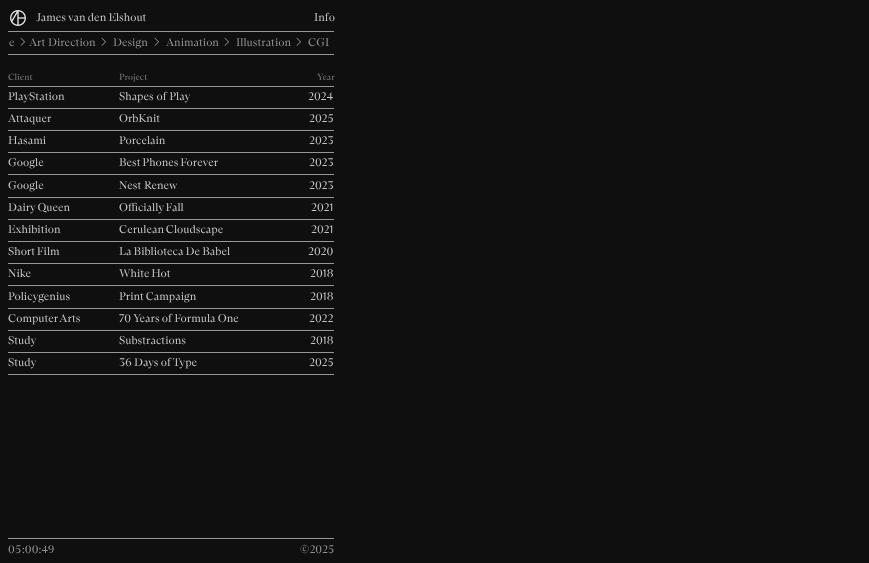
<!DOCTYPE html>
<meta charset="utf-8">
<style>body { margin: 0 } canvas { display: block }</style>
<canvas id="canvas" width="869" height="563"></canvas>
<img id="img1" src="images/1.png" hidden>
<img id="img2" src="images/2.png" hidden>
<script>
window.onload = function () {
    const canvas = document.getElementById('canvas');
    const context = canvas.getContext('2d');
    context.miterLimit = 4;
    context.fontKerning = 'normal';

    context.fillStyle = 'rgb(15, 15, 15)';
    context.fillRect(0, 0, 869, 563);
    context.drawImage(document.getElementById('img1'), 10, 10, 16, 16);
    context.fillStyle = 'rgb(150, 150, 150)';
    context.fillRect(8, 31, 326, 1);
    context.drawImage(document.getElementById('img2'), 20, 37, 5, 9);
    context.drawImage(document.getElementById('img2'), 101, 37, 5, 9);
    context.drawImage(document.getElementById('img2'), 154, 37, 5, 9);
    context.drawImage(document.getElementById('img2'), 224, 37, 5, 9);
    context.drawImage(document.getElementById('img2'), 296, 37, 5, 9);
    context.fillRect(8, 54, 326, 1);
    context.fillRect(8, 86, 326, 1);
    context.fillRect(8, 108, 326, 1);
    context.fillRect(8, 130, 326, 1);
    context.fillRect(8, 152, 326, 1);
    context.fillRect(8, 174, 326, 1);
    context.fillRect(8, 197, 326, 1);
    context.fillRect(8, 219, 326, 1);
    context.fillRect(8, 241, 326, 1);
    context.fillRect(8, 263, 326, 1);
    context.fillRect(8, 285, 326, 1);
    context.fillRect(8, 308, 326, 1);
    context.fillRect(8, 330, 326, 1);
    context.fillRect(8, 352, 326, 1);
    context.fillRect(8, 374, 326, 1);
    context.fillRect(8, 538, 326, 1);
    context.wordSpacing = '-0.5px';
    context.font = '300 11.3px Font';
    context.fillStyle = 'rgb(197, 197, 197)';
    context.fillText('James van den Elshout', 36, 21);
    context.wordSpacing = '0px';
    context.fillText('Info', 314, 21);
    context.fillStyle = 'rgb(147, 147, 147)';
    context.fillText('e', 9, 46);
    context.fillText('Art Direction', 29, 46);
    context.fillText('Design', 113, 46);
    context.fillText('Animation', 166, 46);
    context.fillText('Illustration', 236, 46);
    context.fillText('CGI', 308, 46);
    context.font = '9px Font';
    context.fillStyle = 'rgb(115, 115, 115)';
    context.fillText('Client', 8, 80);
    context.fillText('Project', 119, 80);
    context.fillText('Year', 317, 80);
    context.font = '300 11.3px Font';
    context.fillStyle = 'rgb(197, 197, 197)';
    context.fillText('PlayStation', 8, 100);
    context.fillText('Shapes of Play', 119, 100);
    context.fillText('2024', 308, 100);
    context.fillText('Attaquer', 8, 122);
    context.fillText('OrbKnit', 119, 122);
    context.fillText('2025', 309, 122);
    context.fillText('Hasami', 8, 144);
    context.fillText('Porcelain', 119, 144);
    context.fillText('2023', 309, 144);
    context.fillText('Google', 8, 166);
    context.wordSpacing = '-1px';
    context.fillText('Best Phones Forever', 119, 166);
    context.wordSpacing = '0px';
    context.fillText('2023', 309, 166);
    context.fillText('Google', 8, 189);
    context.fillText('Nest Renew', 119, 189);
    context.fillText('2023', 309, 189);
    context.wordSpacing = '-1px';
    context.fillText('Dairy Queen', 8, 211);
    context.fillText('Officially Fall', 119, 211);
    context.wordSpacing = '0px';
    context.fillText('2021', 311, 211);
    context.fillText('Exhibition', 8, 233);
    context.wordSpacing = '-1px';
    context.fillText('Cerulean Cloudscape', 119, 233);
    context.wordSpacing = '0px';
    context.fillText('2021', 311, 233);
    context.wordSpacing = '-1px';
    context.fillText('Short Film', 8, 255);
    context.wordSpacing = '-0.5px';
    context.fillText('La Biblioteca De Babel', 119, 255);
    context.wordSpacing = '0px';
    context.fillText('2020', 308, 255);
    context.fillText('Nike', 8, 277);
    context.wordSpacing = '-1px';
    context.fillText('White Hot', 119, 277);
    context.wordSpacing = '0px';
    context.fillText('2018', 310, 277);
    context.fillText('Policygenius', 8, 300);
    context.wordSpacing = '-1px';
    context.fillText('Print Campaign', 119, 300);
    context.wordSpacing = '0px';
    context.fillText('2018', 310, 300);
    context.wordSpacing = '-1px';
    context.fillText('Computer Arts', 8, 322);
    context.wordSpacing = '-0.5px';
    context.fillText('70 Years of Formula One', 119, 322);
    context.wordSpacing = '0px';
    context.fillText('2022', 309, 322);
    context.fillText('Study', 8, 344);
    context.fillText('Substractions', 119, 344);
    context.fillText('2018', 310, 344);
    context.fillText('Study', 8, 366);
    context.wordSpacing = '-0.5px';
    context.fillText('36 Days of Type', 119, 366);
    context.wordSpacing = '0px';
    context.fillText('2025', 309, 366);
    context.font = '300 11.3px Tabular';
    context.fillStyle = 'rgb(147, 147, 147)';
    context.fillText('05', 8, 553);
    context.font = '300 11.3px Font';
    context.fillText(':00:49', 22, 553);
    context.fillText('©2025', 300, 553);
};
</script>
